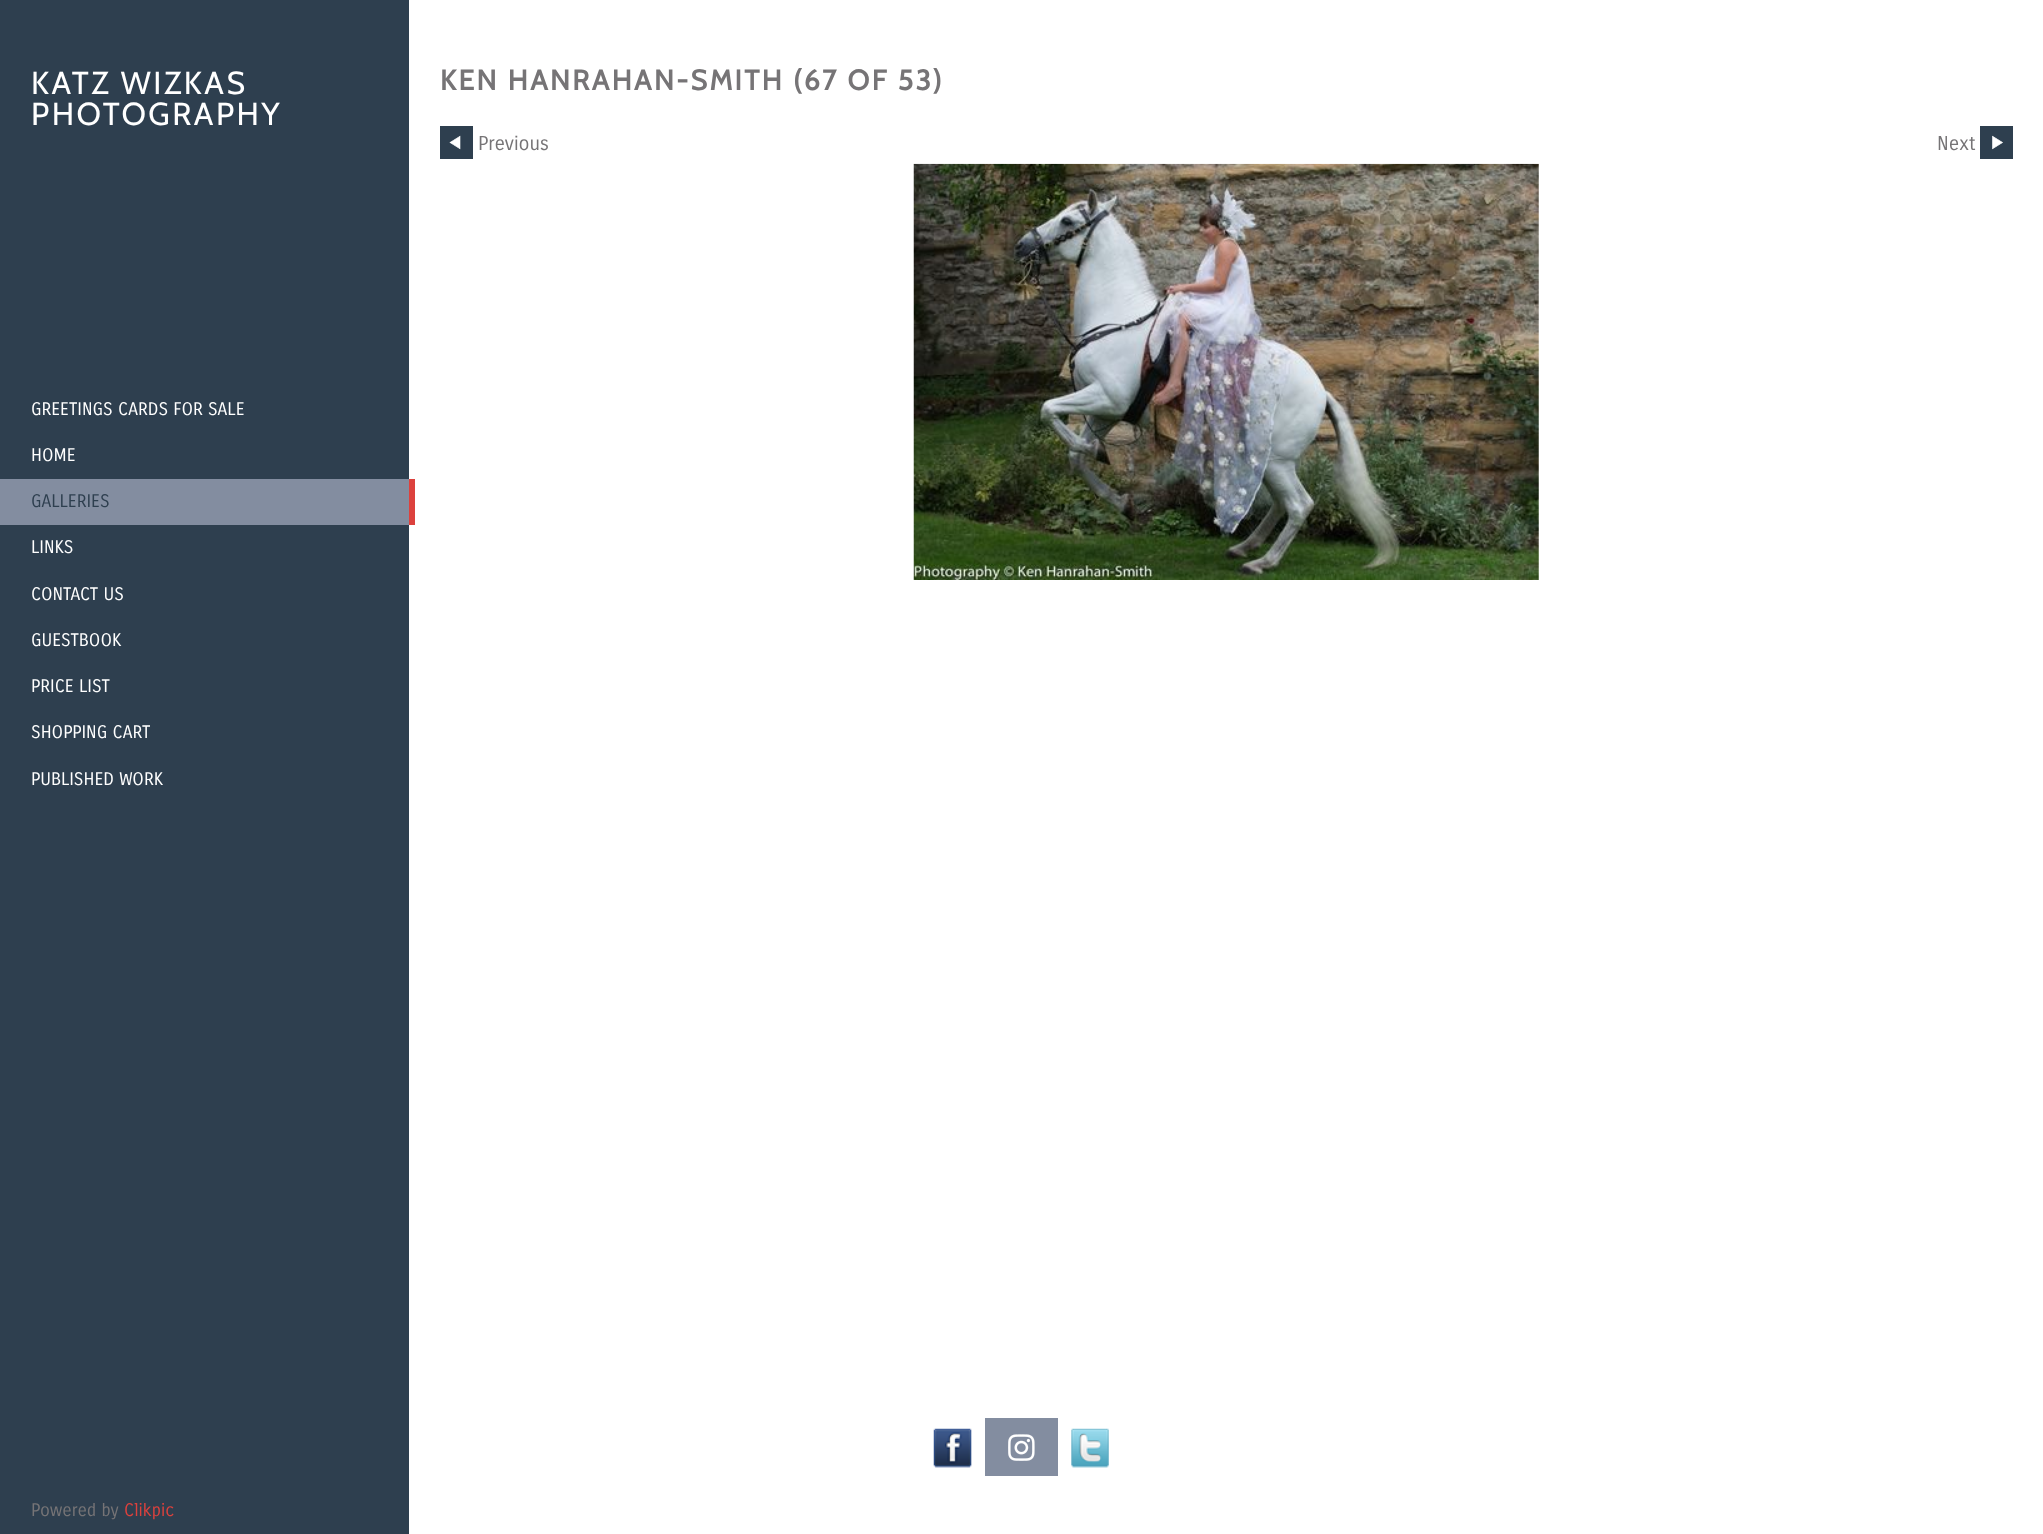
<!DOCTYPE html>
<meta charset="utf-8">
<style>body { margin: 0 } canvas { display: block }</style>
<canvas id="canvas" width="2043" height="1534"></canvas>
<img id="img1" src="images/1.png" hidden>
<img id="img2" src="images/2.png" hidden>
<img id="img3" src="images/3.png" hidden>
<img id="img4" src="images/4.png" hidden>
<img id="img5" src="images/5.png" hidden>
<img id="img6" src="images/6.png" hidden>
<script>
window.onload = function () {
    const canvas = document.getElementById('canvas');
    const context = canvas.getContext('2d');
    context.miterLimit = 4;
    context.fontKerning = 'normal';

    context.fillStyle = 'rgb(255, 255, 255)';
    context.fillRect(0, 0, 2043, 1534);
    context.fillStyle = 'rgb(46, 63, 79)';
    context.fillRect(0, 0, 409, 1534);
    context.fillStyle = 'rgb(131, 141, 160)';
    context.fillRect(0, 479, 409, 46);
    context.fillStyle = 'rgb(220, 65, 61)';
    context.fillRect(409, 479, 6, 46);
    context.fillStyle = 'rgb(46, 63, 79)';
    context.fillRect(440, 126, 33, 33);
    context.drawImage(document.getElementById('img1'), 449, 135, 12, 15);
    context.fillRect(1980, 126, 33, 33);
    context.drawImage(document.getElementById('img2'), 1992, 135, 11, 15);
    context.drawImage(document.getElementById('img3'), 913, 163, 626, 417);
    context.drawImage(document.getElementById('img4'), 933, 1428, 39, 40);
    context.fillStyle = 'rgb(131, 141, 160)';
    context.fillRect(985, 1418, 73, 58);
    context.drawImage(document.getElementById('img5'), 1008, 1434, 27, 27);
    context.drawImage(document.getElementById('img6'), 1071, 1428, 38, 40);
    context.letterSpacing = '2.5px';
    context.font = '31.75px Cabin';
    context.fillStyle = 'rgb(255, 255, 255)';
    context.fillText('KATZ WIZKAS', 31, 94);
    context.fillText('PHOTOGRAPHY', 31, 125);
    context.letterSpacing = '0px';
    context.font = '17.6px Carrois Gothic';
    context.fillText('GREETINGS CARDS FOR SALE', 31, 415);
    context.fillText('HOME', 31, 461);
    context.fillStyle = 'rgb(46, 63, 79)';
    context.fillText('GALLERIES', 31, 507);
    context.fillStyle = 'rgb(255, 255, 255)';
    context.fillText('LINKS', 31, 553);
    context.fillText('CONTACT US', 31, 600);
    context.fillText('GUESTBOOK', 31, 646);
    context.fillText('PRICE LIST', 31, 692);
    context.fillText('SHOPPING CART', 31, 738);
    context.fillText('PUBLISHED WORK', 31, 785);
    context.letterSpacing = '2.5px';
    context.font = 'bold 28.2px Cabin';
    context.fillStyle = 'rgb(118, 116, 118)';
    context.fillText('KEN HANRAHAN-SMITH (67 OF 53)', 440, 90);
    context.letterSpacing = '0px';
    context.font = '19.5px Carrois Gothic';
    context.fillText('Previous', 478, 150);
    context.fillText('Next', 1937, 150);
    context.font = '17.6px Carrois Gothic';
    context.fillText('Powered by', 31, 1516);
    context.fillStyle = 'rgb(220, 65, 61)';
    context.fillText('Clikpic', 124, 1516);
};
</script>
